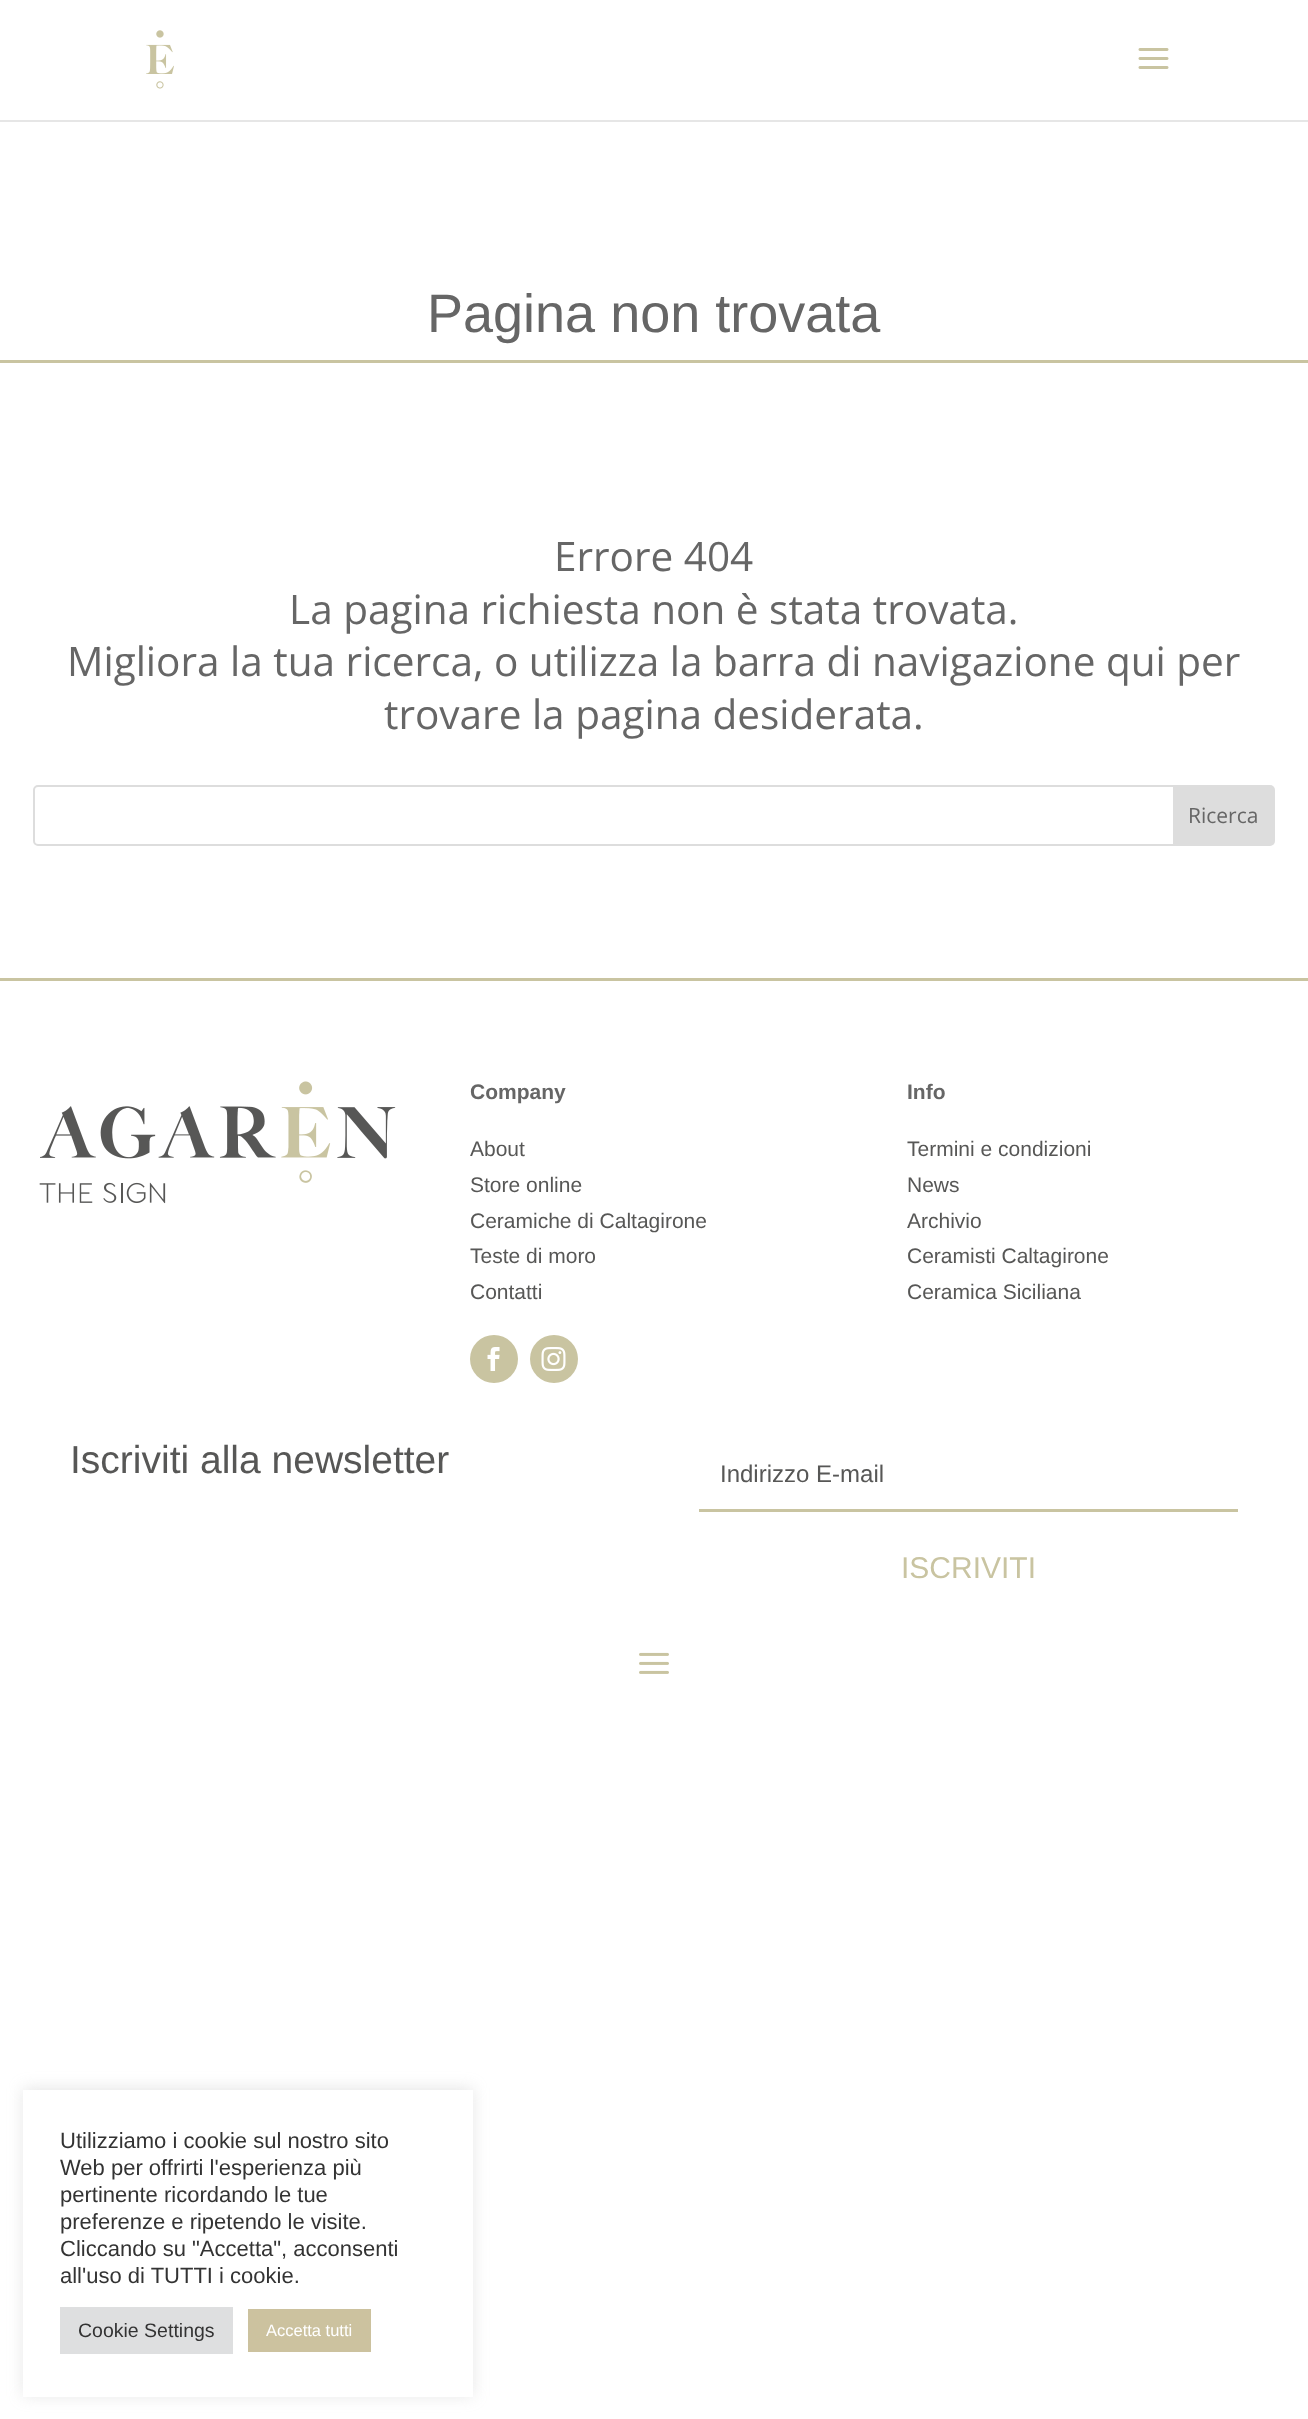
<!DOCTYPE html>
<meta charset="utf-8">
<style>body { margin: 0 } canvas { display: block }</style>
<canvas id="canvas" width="1308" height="2419"></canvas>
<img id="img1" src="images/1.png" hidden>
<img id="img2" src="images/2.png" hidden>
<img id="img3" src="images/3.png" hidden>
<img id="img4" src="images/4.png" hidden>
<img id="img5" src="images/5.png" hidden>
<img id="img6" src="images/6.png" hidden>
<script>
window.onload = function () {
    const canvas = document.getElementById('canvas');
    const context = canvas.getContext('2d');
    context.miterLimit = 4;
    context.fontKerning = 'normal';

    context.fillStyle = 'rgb(255, 255, 255)';
    context.fillRect(0, 0, 1308, 2419);
    context.fillStyle = 'rgb(230, 230, 230)';
    context.fillRect(0, 120, 1308, 2);
    context.drawImage(document.getElementById('img1'), 146, 30, 28, 59);
    context.drawImage(document.getElementById('img2'), 1138, 48, 31, 21);
    context.fillStyle = 'rgb(201, 196, 161)';
    context.fillRect(0, 360, 1308, 3);
    context.beginPath();
    context.roundRect(34, 786, 1240, 59, 4);
    context.strokeStyle = 'rgb(221, 221, 221)';
    context.lineWidth = 2;
    context.stroke();
    context.fillStyle = 'rgb(221, 221, 221)';
    context.beginPath();
    context.roundRect(1173, 786, 101, 59, [0, 3, 3, 0]);
    context.fill();
    context.fillStyle = 'rgb(201, 196, 161)';
    context.fillRect(0, 978, 1308, 3);
    context.drawImage(document.getElementById('img3'), 39, 1081, 357, 123);
    context.beginPath();
    context.arc(494, 1359, 24, 0, 2 * Math.PI);
    context.fill();
    context.drawImage(document.getElementById('img4'), 487, 1347, 13, 24);
    context.beginPath();
    context.arc(554, 1359, 24, 0, 2 * Math.PI);
    context.fill();
    context.drawImage(document.getElementById('img5'), 541, 1347, 25, 24);
    context.fillRect(699, 1509, 539, 3);
    context.drawImage(document.getElementById('img6'), 639, 1652, 30, 22);
    context.fillStyle = 'rgba(172, 171, 171, 0.3)';
    context.filter = 'blur(7.5px)';
    context.beginPath();
    context.rect(23, 2088, 450, 308);
    context.fill();
    context.filter = 'none';
    context.fillStyle = 'rgb(255, 255, 255)';
    context.fillRect(23, 2090, 450, 307);
    context.fillStyle = 'rgb(222, 223, 224)';
    context.fillRect(60, 2307, 173, 47);
    context.fillStyle = 'rgb(204, 194, 159)';
    context.fillRect(248, 2309, 123, 43);
    context.font = '54px Liberation Sans';
    context.fillStyle = 'rgb(102, 102, 102)';
    context.fillText('Pagina non trovata', 427, 332);
    context.font = '40.5px Open Sans';
    context.fillText('Errore 404', 554, 571);
    context.fillText('La pagina richiesta non è stata trovata.', 289, 624);
    context.fillText('Migliora la tua ricerca, o utilizza la barra di navigazione qui per', 67, 676);
    context.fillText('trovare la pagina desiderata.', 384, 729);
    context.font = '21px Open Sans';
    context.fillText('Ricerca', 1188, 823);
    context.font = 'bold 21px Liberation Sans';
    context.fillText('Company', 470, 1099);
    context.font = '21px Liberation Sans';
    context.fillStyle = 'rgb(87, 87, 86)';
    context.fillText('About', 470, 1156);
    context.fillText('Store online', 470, 1192);
    context.fillText('Ceramiche di Caltagirone', 470, 1228);
    context.fillText('Teste di moro', 470, 1263);
    context.fillText('Contatti', 470, 1299);
    context.font = 'bold 21px Liberation Sans';
    context.fillStyle = 'rgb(102, 102, 102)';
    context.fillText('Info', 907, 1099);
    context.font = '21px Liberation Sans';
    context.fillStyle = 'rgb(87, 87, 86)';
    context.fillText('Termini e condizioni', 907, 1156);
    context.fillText('News', 907, 1192);
    context.fillText('Archivio', 907, 1228);
    context.fillText('Ceramisti Caltagirone', 907, 1263);
    context.fillText('Ceramica Siciliana', 907, 1299);
    context.font = '39px Liberation Sans';
    context.fillText('Iscriviti alla newsletter', 70, 1473);
    context.font = '24px Liberation Sans';
    context.fillText('Indirizzo E-mail', 720, 1482);
    context.font = '30px Liberation Sans';
    context.fillStyle = 'rgb(201, 196, 161)';
    context.fillText('ISCRIVITI', 901, 1578);
    context.font = '22px Liberation Sans';
    context.fillStyle = 'rgb(51, 51, 51)';
    context.fillText('Utilizziamo i cookie sul nostro sito', 60, 2148);
    context.fillText('Web per offrirti l\'esperienza più', 60, 2175);
    context.fillText('pertinente ricordando le tue', 60, 2202);
    context.fillText('preferenze e ripetendo le visite.', 60, 2229);
    context.fillText('Cliccando su "Accetta", acconsenti', 60, 2256);
    context.fillText('all\'uso di TUTTI i cookie.', 60, 2283);
    context.font = '19.5px Liberation Sans';
    context.fillText('Cookie Settings', 78, 2337);
    context.font = '16.5px Liberation Sans';
    context.fillStyle = 'rgb(255, 255, 255)';
    context.fillText('Accetta tutti', 266, 2336);
};
</script>
